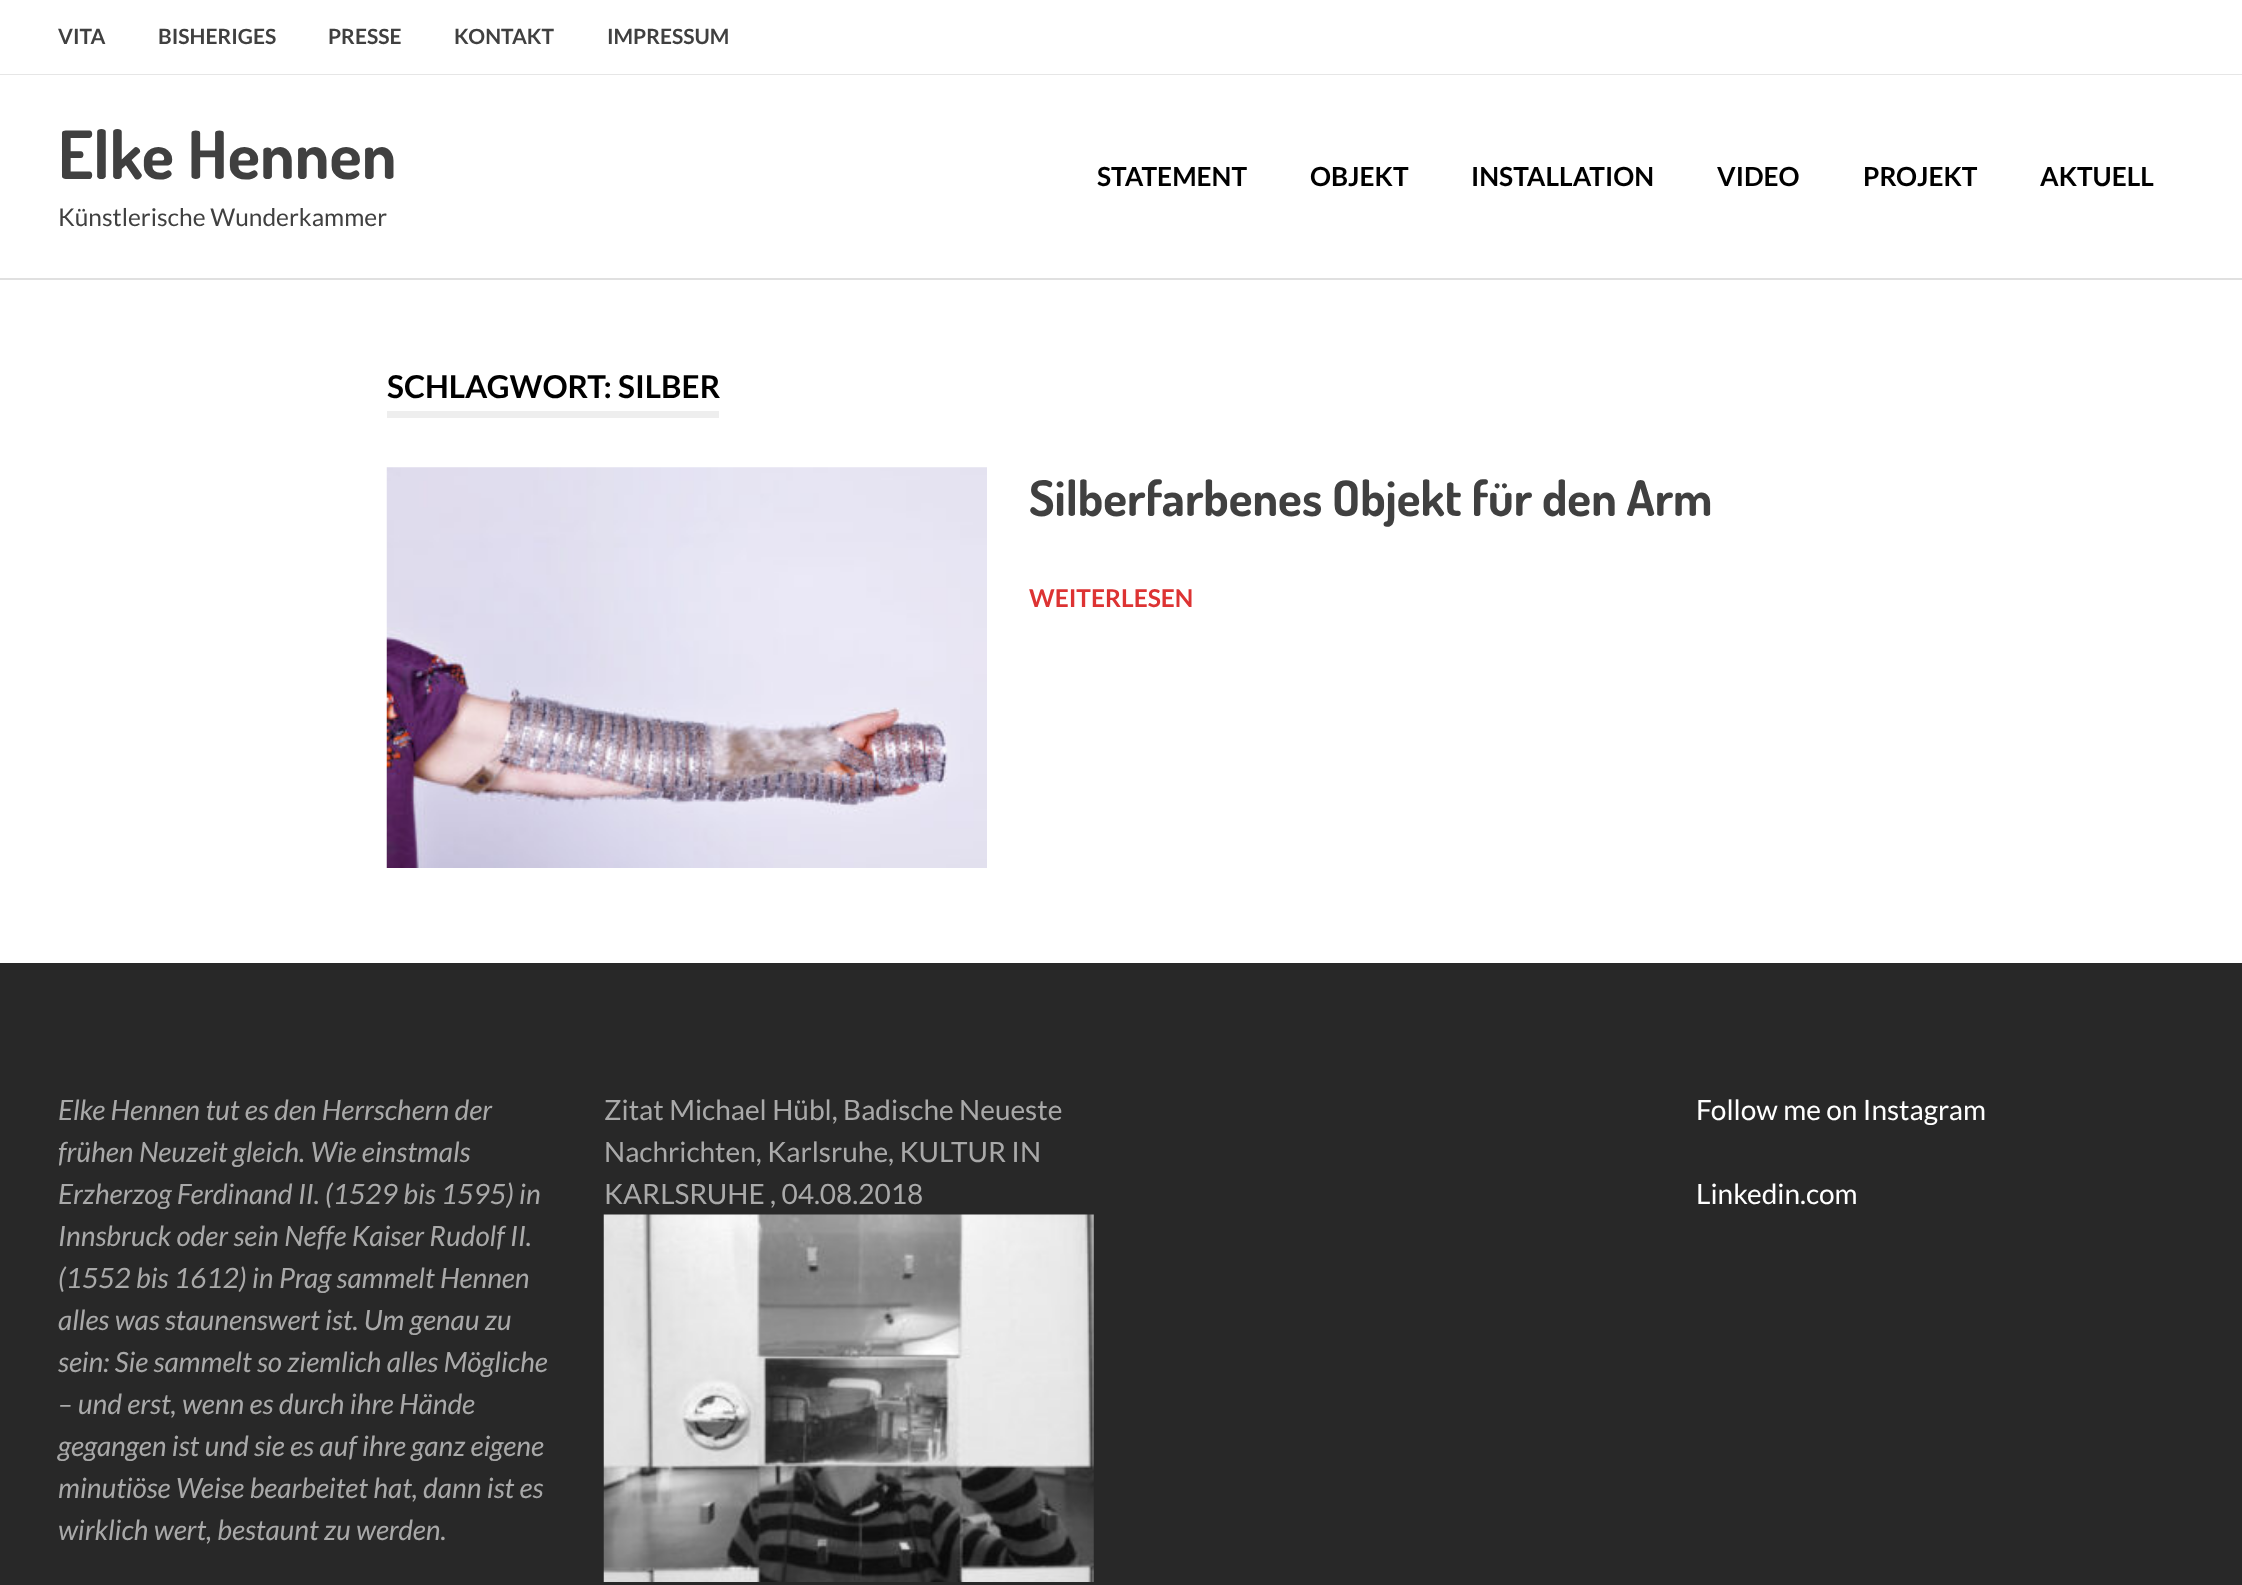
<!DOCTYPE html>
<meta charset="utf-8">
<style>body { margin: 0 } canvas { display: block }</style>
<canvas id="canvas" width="2242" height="1585"></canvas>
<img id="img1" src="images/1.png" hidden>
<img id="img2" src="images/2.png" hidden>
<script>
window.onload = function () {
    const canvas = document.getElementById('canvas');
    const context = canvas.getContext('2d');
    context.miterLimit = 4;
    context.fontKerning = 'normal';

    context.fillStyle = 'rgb(255, 255, 255)';
    context.fillRect(0, 0, 2242, 1585);
    context.fillStyle = 'rgb(230, 230, 230)';
    context.fillRect(0, 74, 2242, 1);
    context.fillStyle = 'rgb(224, 224, 224)';
    context.fillRect(0, 278, 2242, 2);
    context.fillStyle = 'rgb(238, 238, 238)';
    context.fillRect(387, 411, 332, 7);
    context.drawImage(document.getElementById('img1'), 386, 467, 601, 401);
    context.fillStyle = 'rgb(40, 40, 40)';
    context.fillRect(0, 963, 2242, 622);
    context.drawImage(document.getElementById('img2'), 603, 1214, 491, 368);
    context.font = 'bold 21px Lato';
    context.fillStyle = 'rgb(64, 64, 64)';
    context.fillText('VITA', 58, 44);
    context.fillText('BISHERIGES', 158, 44);
    context.fillText('PRESSE', 328, 44);
    context.fillText('KONTAKT', 454, 44);
    context.fillText('IMPRESSUM', 607, 44);
    context.font = 'bold 66.5px Dosis';
    context.fillText('Elke Hennen', 58, 179);
    context.font = '24.5px Lato';
    context.fillText('Künstlerische Wunderkammer', 58, 226);
    context.font = 'bold 26.25px Lato';
    context.fillStyle = 'rgb(0, 0, 0)';
    context.fillText('STATEMENT', 1097, 186);
    context.fillText('OBJEKT', 1310, 186);
    context.fillText('INSTALLATION', 1471, 186);
    context.fillText('VIDEO', 1717, 186);
    context.fillText('PROJEKT', 1863, 186);
    context.fillText('AKTUELL', 2040, 186);
    context.font = 'bold 31.5px Lato';
    context.fillText('SCHLAGWORT: SILBER', 387, 398);
    context.font = 'bold 49px Dosis';
    context.fillStyle = 'rgb(64, 64, 64)';
    context.fillText('Silberfarbenes Objekt für den Arm', 1029, 516);
    context.font = 'bold 24.5px Lato';
    context.fillStyle = 'rgb(221, 51, 51)';
    context.fillText('WEITERLESEN', 1029, 607);
    context.font = 'italic 28px Lato';
    context.fillStyle = 'rgb(169, 169, 169)';
    context.fillText('Elke Hennen tut es den Herrschern der', 58, 1120);
    context.fillText('frühen Neuzeit gleich. Wie einstmals', 58, 1162);
    context.fillText('Erzherzog Ferdinand II. (1529 bis 1595) in', 58, 1204);
    context.fillText('Innsbruck oder sein Neffe Kaiser Rudolf II.', 58, 1246);
    context.fillText('(1552 bis 1612) in Prag sammelt Hennen', 58, 1288);
    context.fillText('alles was staunenswert ist. Um genau zu', 58, 1330);
    context.fillText('sein: Sie sammelt so ziemlich alles Mögliche', 58, 1372);
    context.fillText('– und erst, wenn es durch ihre Hände', 58, 1414);
    context.fillText('gegangen ist und sie es auf ihre ganz eigene', 58, 1456);
    context.fillText('minutiöse Weise bearbeitet hat, dann ist es', 58, 1498);
    context.fillText('wirklich wert, bestaunt zu werden.', 58, 1540);
    context.font = '28px Lato';
    context.fillText('Zitat Michael Hübl, Badische Neueste', 604, 1120);
    context.fillText('Nachrichten, Karlsruhe, KULTUR IN', 604, 1162);
    context.fillText('KARLSRUHE , 04.08.2018', 604, 1204);
    context.fillStyle = 'rgb(255, 255, 255)';
    context.fillText('Follow me on Instagram', 1696, 1120);
    context.fillText('Linkedin.com', 1696, 1204);
};
</script>
